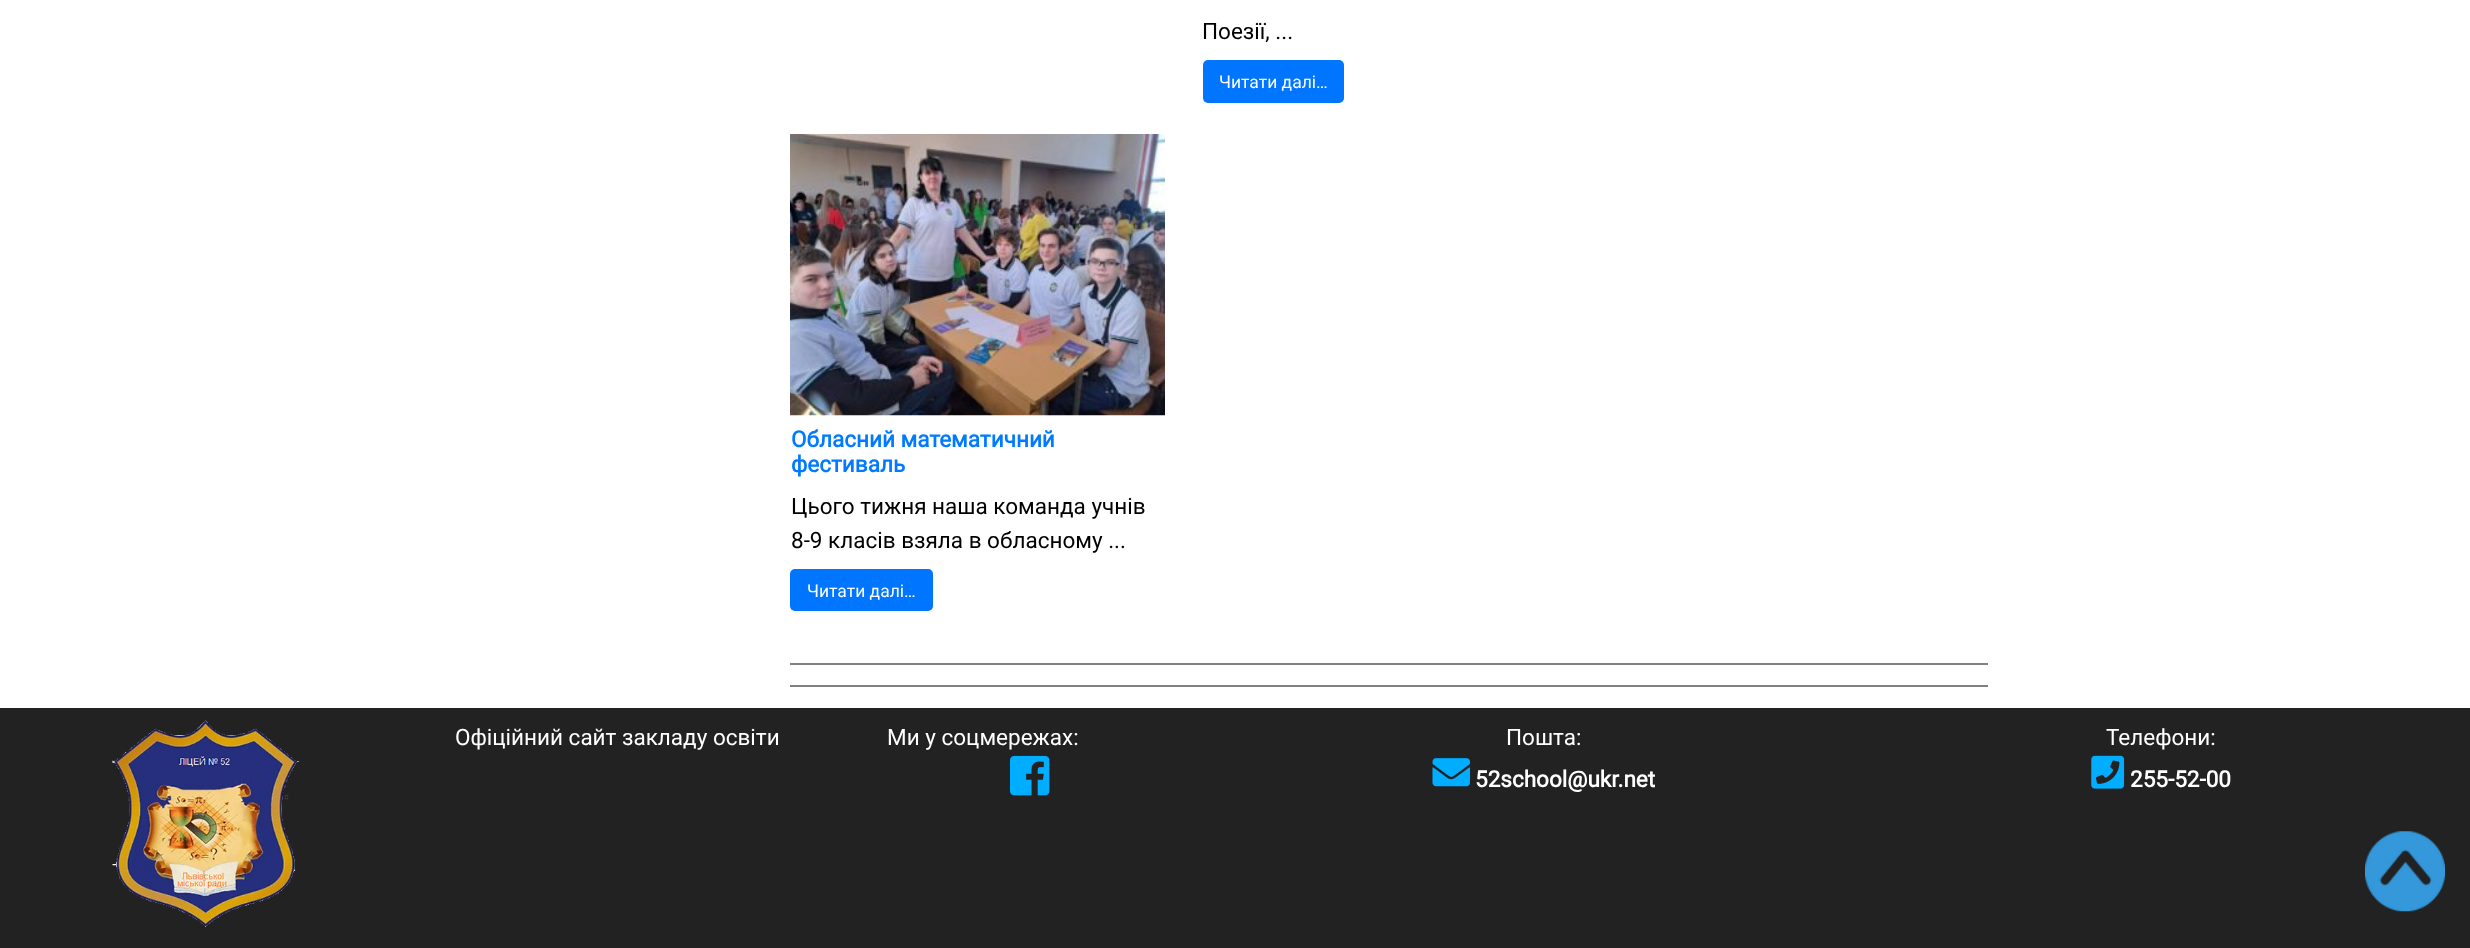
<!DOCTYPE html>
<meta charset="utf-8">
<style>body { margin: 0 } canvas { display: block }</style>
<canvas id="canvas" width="2470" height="948"></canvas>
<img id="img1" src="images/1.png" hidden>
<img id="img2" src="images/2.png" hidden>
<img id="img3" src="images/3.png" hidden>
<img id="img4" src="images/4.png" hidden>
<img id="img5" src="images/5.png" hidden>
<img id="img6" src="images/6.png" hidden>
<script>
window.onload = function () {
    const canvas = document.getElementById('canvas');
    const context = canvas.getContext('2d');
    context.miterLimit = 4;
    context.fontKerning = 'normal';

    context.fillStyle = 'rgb(255, 255, 255)';
    context.fillRect(0, 0, 2470, 948);
    context.fillStyle = 'rgb(0, 117, 255)';
    context.beginPath();
    context.roundRect(1203, 60, 141, 43, 5);
    context.fill();
    context.drawImage(document.getElementById('img1'), 790, 134, 375, 282);
    context.beginPath();
    context.roundRect(790, 569, 143, 42, 5);
    context.fill();
    context.fillStyle = 'rgb(128, 128, 128)';
    context.fillRect(790, 663, 1198, 2);
    context.fillRect(790, 685, 1198, 2);
    context.fillStyle = 'rgb(34, 34, 34)';
    context.fillRect(0, 708, 2470, 240);
    context.drawImage(document.getElementById('img2'), 112, 720, 187, 207);
    context.drawImage(document.getElementById('img3'), 1010, 755, 40, 41);
    context.drawImage(document.getElementById('img4'), 1432, 758, 38, 29);
    context.drawImage(document.getElementById('img5'), 2091, 755, 34, 34);
    context.drawImage(document.getElementById('img6'), 2365, 831, 80, 81);
    context.font = '22.5px Roboto';
    context.fillStyle = 'rgb(0, 0, 0)';
    context.fillText('Поезії, ...', 1202, 39);
    context.font = '17.5px Roboto';
    context.fillStyle = 'rgb(255, 255, 255)';
    context.fillText('Читати далі…', 1219, 88);
    context.font = 'bold 22.5px Roboto';
    context.fillStyle = 'rgb(0, 123, 255)';
    context.fillText('Обласний математичний', 791, 447);
    context.fillText('фестиваль', 791, 472);
    context.font = '22.5px Roboto';
    context.fillStyle = 'rgb(0, 0, 0)';
    context.fillText('Цього тижня наша команда учнів', 791, 514);
    context.fillText('8-9 класів взяла в обласному ...', 791, 548);
    context.font = '17.5px Roboto';
    context.fillStyle = 'rgb(255, 255, 255)';
    context.fillText('Читати далі…', 807, 597);
    context.font = '22.5px Roboto';
    context.fillText('Офіційний сайт закладу освіти', 455, 745);
    context.fillText('Ми у соцмережах:', 887, 745);
    context.fillText('Пошта:', 1506, 745);
    context.font = 'bold 22.5px Roboto';
    context.fillText('52school@ukr.net', 1475, 787);
    context.font = '22.5px Roboto';
    context.fillText('Телефони:', 2106, 745);
    context.font = 'bold 22.5px Roboto';
    context.fillText('255-52-00', 2130, 787);
};
</script>
